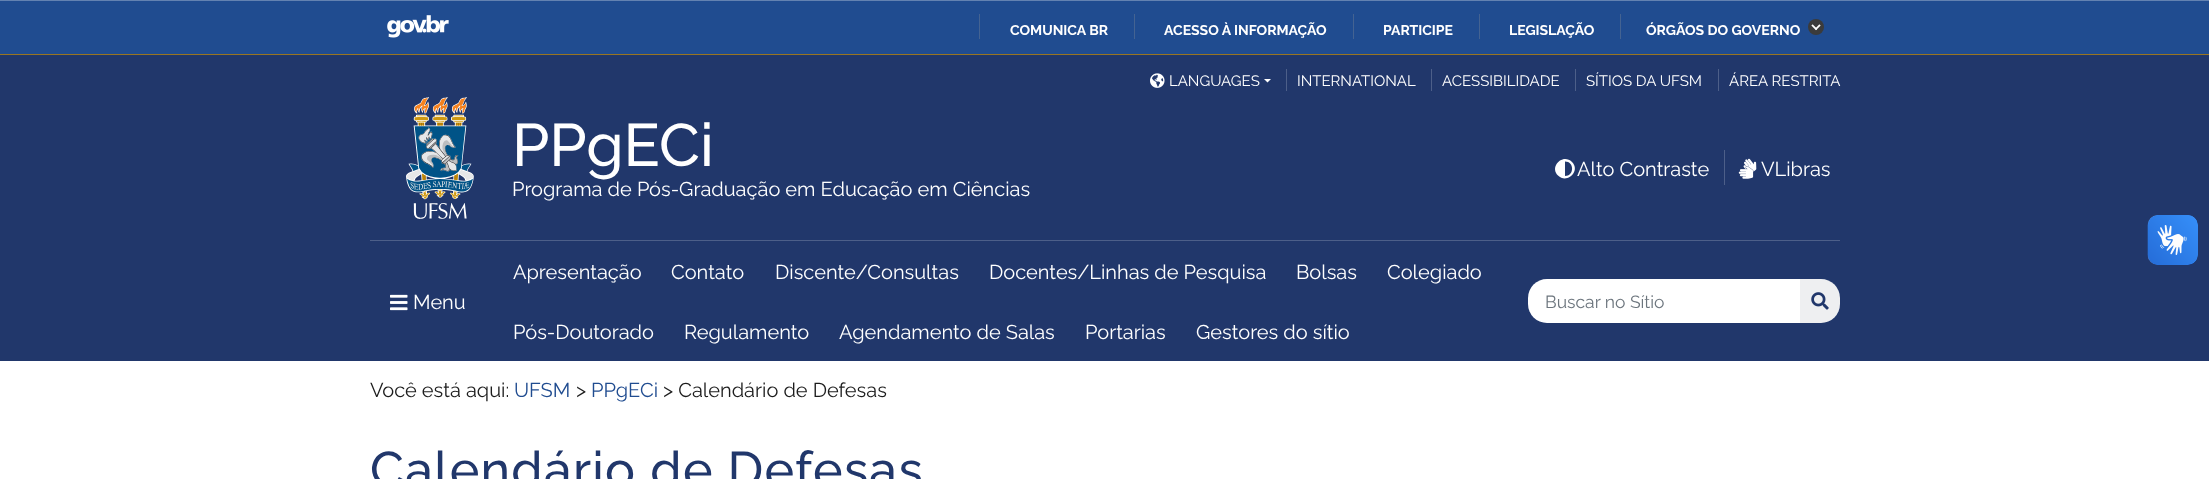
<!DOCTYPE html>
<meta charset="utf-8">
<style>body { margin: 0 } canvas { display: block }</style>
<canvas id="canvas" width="2209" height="479"></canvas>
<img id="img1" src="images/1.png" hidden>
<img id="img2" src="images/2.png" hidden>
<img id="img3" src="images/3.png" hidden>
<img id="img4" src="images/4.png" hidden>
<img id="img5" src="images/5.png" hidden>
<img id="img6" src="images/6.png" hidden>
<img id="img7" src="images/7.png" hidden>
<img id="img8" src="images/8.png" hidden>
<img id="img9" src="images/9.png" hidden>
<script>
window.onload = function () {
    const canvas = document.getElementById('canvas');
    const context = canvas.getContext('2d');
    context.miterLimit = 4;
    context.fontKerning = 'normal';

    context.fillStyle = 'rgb(255, 255, 255)';
    context.fillRect(0, 0, 2209, 479);
    context.fillStyle = 'rgb(32, 76, 144)';
    context.fillRect(0, 1, 2209, 53);
    context.fillStyle = 'rgb(99, 130, 177)';
    context.fillRect(0, 0, 2209, 1);
    context.drawImage(document.getElementById('img1'), 387, 15, 62, 23);
    context.fillStyle = 'rgb(68, 99, 146)';
    context.fillRect(979, 14, 1, 25);
    context.fillRect(1134, 14, 1, 25);
    context.fillRect(1353, 14, 1, 25);
    context.fillRect(1479, 14, 1, 25);
    context.fillRect(1620, 14, 1, 25);
    context.fillStyle = 'rgb(59, 59, 59)';
    context.beginPath();
    context.arc(1816, 27, 8, 0, 2 * Math.PI);
    context.fill();
    context.drawImage(document.getElementById('img2'), 1811, 24, 10, 7);
    context.fillStyle = 'rgb(33, 55, 107)';
    context.fillRect(0, 55, 2209, 306);
    context.fillStyle = 'rgb(153, 117, 32)';
    context.fillRect(0, 54, 2209, 1);
    context.drawImage(document.getElementById('img3'), 1150, 73, 15, 15);
    context.fillStyle = 'rgb(255, 255, 255)';
    context.beginPath();
    context.moveTo(1264, 79);
    context.lineTo(1271, 79);
    context.lineTo(1267.5, 82.5);
    context.closePath();
    context.fill();
    context.fillStyle = 'rgb(77, 95, 137)';
    context.fillRect(1286, 69, 1, 22);
    context.fillRect(1431, 69, 1, 22);
    context.fillRect(1575, 69, 1, 22);
    context.fillRect(1718, 69, 1, 22);
    context.fillRect(370, 240, 1470, 1);
    context.drawImage(document.getElementById('img4'), 406, 97, 68, 122);
    context.fillStyle = 'rgb(255, 255, 255)';
    context.beginPath();
    context.moveTo(1558, 175.5);
    context.bezierCurveTo(1549, 166.5, 1563, 153, 1572, 162);
    context.bezierCurveTo(1581, 171, 1567, 184.5, 1558, 175.5);
    context.closePath();
    context.moveTo(1565, 176);
    context.bezierCurveTo(1574.5, 176, 1574.5, 161.5, 1565, 161.5);
    context.closePath();
    context.fill();
    context.fillStyle = 'rgb(77, 95, 137)';
    context.fillRect(1724, 150, 1, 35);
    context.drawImage(document.getElementById('img5'), 1738, 158, 19, 21);
    context.drawImage(document.getElementById('img6'), 390, 294, 18, 17);
    context.save();
    context.beginPath();
    context.roundRect(1528, 279, 312, 44, 19);
    context.clip();
    context.fillStyle = 'rgb(255, 255, 255)';
    context.beginPath();
    context.roundRect(1526, 279, 275, 44, [5, 0, 0, 5]);
    context.fill();
    context.restore();
    context.fillStyle = 'rgb(238, 239, 241)';
    context.beginPath();
    context.roundRect(1800, 279, 40, 44, [0, 19, 19, 0]);
    context.fill();
    context.drawImage(document.getElementById('img7'), 1811, 292, 18, 18);
    context.drawImage(document.getElementById('img8'), 2147, 215, 51, 50);
    context.drawImage(document.getElementById('img9'), 2148, 215, 50, 50);
    context.font = 'bold 14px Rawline';
    context.fillStyle = 'rgb(255, 255, 255)';
    context.fillText('COMUNICA BR', 1010, 35);
    context.fillText('ACESSO À INFORMAÇÃO', 1164, 35);
    context.fillText('PARTICIPE', 1383, 35);
    context.fillText('LEGISLAÇÃO', 1509, 35);
    context.fillText('ÓRGÃOS DO GOVERNO', 1646, 35);
    context.font = '15px Rawline';
    context.fillText('LANGUAGES', 1169, 86);
    context.fillText('INTERNATIONAL', 1297, 86);
    context.fillText('ACESSIBILIDADE', 1442, 86);
    context.fillText('SÍTIOS DA UFSM', 1586, 86);
    context.fillText('ÁREA RESTRITA', 1729, 86);
    context.font = '500 60px Rawline';
    context.fillText('PPgECi', 512, 166);
    context.font = '20px Rawline';
    context.fillText('Programa de Pós-Graduação em Educação em Ciências', 512, 196);
    context.fillText('Alto Contraste', 1577, 176);
    context.fillText('VLibras', 1761, 176);
    context.fillText('Menu', 413, 309);
    context.fillText('Apresentação', 513, 279);
    context.fillText('Contato', 671, 279);
    context.fillText('Discente/Consultas', 775, 279);
    context.fillText('Docentes/Linhas de Pesquisa', 989, 279);
    context.fillText('Bolsas', 1296, 279);
    context.fillText('Colegiado', 1387, 279);
    context.fillText('Pós-Doutorado', 513, 339);
    context.fillText('Regulamento', 684, 339);
    context.fillText('Agendamento de Salas', 839, 339);
    context.fillText('Portarias', 1085, 339);
    context.fillText('Gestores do sítio', 1196, 339);
    context.font = '17.5px Rawline';
    context.fillStyle = 'rgb(108, 117, 125)';
    context.fillText('Buscar no Sítio', 1545, 308);
    context.font = '20px Rawline';
    context.fillStyle = 'rgb(28, 28, 28)';
    context.fillText('Você está aqui:', 370, 397);
    context.fillStyle = 'rgb(32, 76, 144)';
    context.fillText('UFSM', 514, 397);
    context.fillStyle = 'rgb(28, 28, 28)';
    context.fillText('>', 576, 397);
    context.fillStyle = 'rgb(32, 76, 144)';
    context.fillText('PPgECi', 591, 397);
    context.fillStyle = 'rgb(28, 28, 28)';
    context.fillText('> Calendário de Defesas', 663, 397);
    context.letterSpacing = '1.25px';
    context.font = '500 50px Rawline';
    context.fillStyle = 'rgb(33, 55, 107)';
    context.fillText('Calendário de Defesas', 370, 487);
};
</script>
